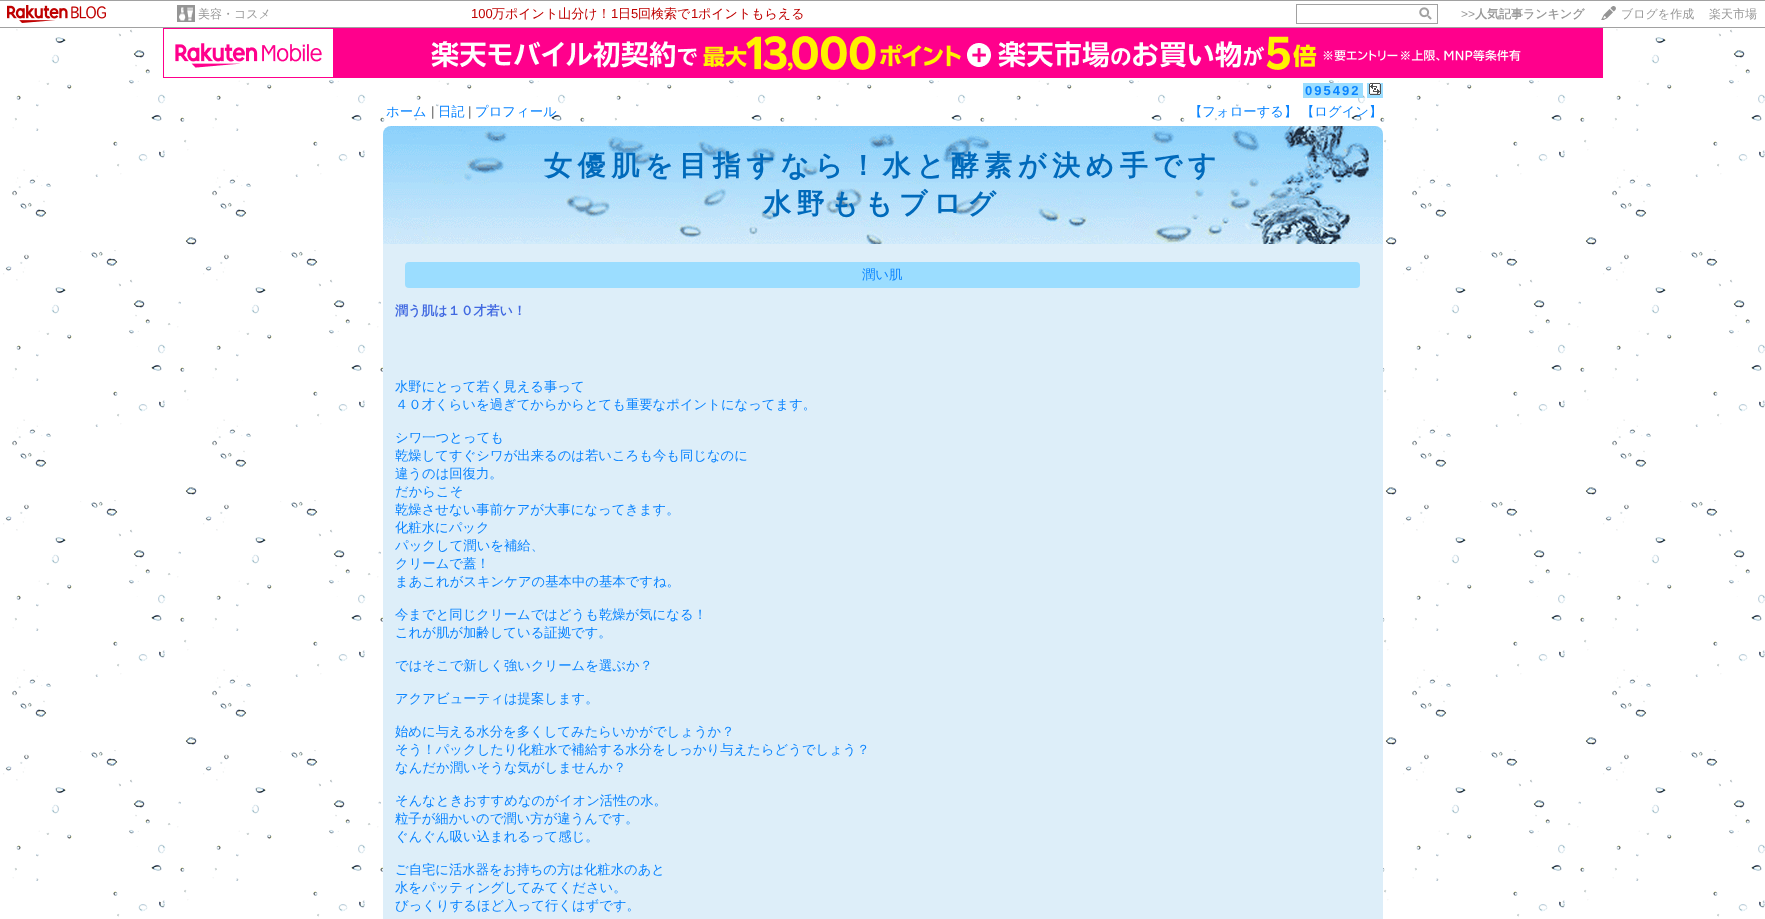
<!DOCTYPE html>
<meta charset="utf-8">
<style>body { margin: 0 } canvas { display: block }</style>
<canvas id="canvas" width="1765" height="919"></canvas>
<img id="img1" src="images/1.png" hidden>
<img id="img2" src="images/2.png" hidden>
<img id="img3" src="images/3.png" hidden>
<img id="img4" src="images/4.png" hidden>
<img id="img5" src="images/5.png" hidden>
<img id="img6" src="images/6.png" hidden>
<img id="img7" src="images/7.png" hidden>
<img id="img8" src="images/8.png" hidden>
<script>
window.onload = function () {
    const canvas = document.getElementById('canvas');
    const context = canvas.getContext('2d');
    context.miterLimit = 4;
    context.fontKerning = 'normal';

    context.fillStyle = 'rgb(255, 255, 255)';
    context.fillRect(0, 0, 1765, 919);
    context.drawImage(document.getElementById('img1'), 3, 28, 1762, 889);
    context.fillStyle = 'rgb(161, 161, 161)';
    context.fillRect(0, 0, 1765, 1);
    context.fillRect(0, 27, 1765, 1);
    context.drawImage(document.getElementById('img2'), 7, 5, 99, 18);
    context.drawImage(document.getElementById('img3'), 177, 5, 18, 17);
    context.strokeStyle = 'rgb(161, 161, 161)';
    context.strokeRect(1296.5, 4.5, 141, 19);
    context.drawImage(document.getElementById('img4'), 1419, 7, 13, 13);
    context.drawImage(document.getElementById('img5'), 1601, 6, 15, 14);
    context.drawImage(document.getElementById('img6'), 163, 28, 1440, 50);
    context.fillStyle = 'rgb(155, 221, 255)';
    context.fillRect(1367, 83, 16, 15);
    context.fillRect(1303, 83, 60, 15);
    context.drawImage(document.getElementById('img7'), 1369, 83, 12, 12);
    context.drawImage(document.getElementById('img8'), 383, 126, 1000, 118);
    context.fillStyle = 'rgb(221, 238, 249)';
    context.fillRect(383, 244, 1000, 675);
    context.fillStyle = 'rgb(155, 221, 255)';
    context.beginPath();
    context.roundRect(405, 262, 955, 26, 4);
    context.fill();
    context.font = '500 12px WenQuanYi Zen Hei';
    context.fillStyle = 'rgb(153, 153, 153)';
    context.fillText('美容・コスメ', 198, 18);
    context.font = '13px Liberation Sans';
    context.fillStyle = 'rgb(191, 0, 0)';
    context.fillText('100', 471, 18);
    context.font = '500 13px WenQuanYi Zen Hei';
    context.fillText('万ポイント山分け！', 492, 18);
    context.font = '13px Liberation Sans';
    context.fillText('1', 611, 18);
    context.font = '500 13px WenQuanYi Zen Hei';
    context.fillText('日', 618, 18);
    context.font = '13px Liberation Sans';
    context.fillText('5', 631, 18);
    context.font = '500 13px WenQuanYi Zen Hei';
    context.fillText('回検索で', 638, 18);
    context.font = '13px Liberation Sans';
    context.fillText('1', 691, 18);
    context.font = '500 13px WenQuanYi Zen Hei';
    context.fillText('ポイントもらえる', 698, 18);
    context.font = '12px Liberation Sans';
    context.fillStyle = 'rgb(153, 153, 153)';
    context.fillText('>>', 1461, 18);
    context.font = 'bold 12px WenQuanYi Zen Hei';
    context.fillText('人気記事ランキング', 1475, 18);
    context.font = '500 12px WenQuanYi Zen Hei';
    context.fillText('ブログを作成', 1621, 18);
    context.fillText('楽天市場', 1709, 18);
    context.letterSpacing = '2px';
    context.font = 'bold 13px Liberation Sans';
    context.fillStyle = 'rgb(10, 132, 255)';
    context.fillText('095492', 1305, 95);
    context.letterSpacing = '0px';
    context.font = '500 13.35px WenQuanYi Zen Hei';
    context.fillText('ホーム', 386, 116);
    context.font = '13.35px Liberation Sans';
    context.fillStyle = 'rgb(102, 102, 102)';
    context.fillText('|', 431, 116);
    context.font = '500 13.35px WenQuanYi Zen Hei';
    context.fillStyle = 'rgb(10, 132, 255)';
    context.fillText('日記', 438, 116);
    context.font = '13.35px Liberation Sans';
    context.fillStyle = 'rgb(102, 102, 102)';
    context.fillText('|', 468, 116);
    context.font = '500 13.35px WenQuanYi Zen Hei';
    context.fillStyle = 'rgb(10, 132, 255)';
    context.fillText('プロフィール', 475, 116);
    context.fillText('【フォローする】', 1189, 116);
    context.fillText('【ログイン】', 1301, 116);
    context.letterSpacing = '5.6px';
    context.font = 'bold 28px WenQuanYi Zen Hei';
    context.fillStyle = 'rgb(0, 106, 187)';
    context.fillText('女優肌を目指すなら！水と酵素が決め手です', 544, 175);
    context.fillText('水野ももブログ', 763, 213);
    context.letterSpacing = '0px';
    context.font = '500 13.35px WenQuanYi Zen Hei';
    context.fillStyle = 'rgb(10, 132, 255)';
    context.fillText('潤い肌', 862, 279);
    context.font = 'bold 13px WenQuanYi Zen Hei';
    context.fillStyle = 'rgb(65, 105, 225)';
    context.fillText('潤う肌は１０才若い！', 395, 315);
    context.font = '500 13.35px WenQuanYi Zen Hei';
    context.fillStyle = 'rgb(10, 132, 255)';
    context.fillText('水野にとって若く見える事って', 395, 391);
    context.fillText('４０才くらいを過ぎてからからとても重要なポイントになってます。', 395, 409);
    context.fillText('シワ一つとっても', 395, 442);
    context.fillText('乾燥してすぐシワが出来るのは若いころも今も同じなのに', 395, 460);
    context.fillText('違うのは回復力。', 395, 478);
    context.fillText('だからこそ', 395, 496);
    context.fillText('乾燥させない事前ケアが大事になってきます。', 395, 514);
    context.fillText('化粧水にパック', 395, 532);
    context.fillText('パックして潤いを補給、', 395, 550);
    context.fillText('クリームで蓋！', 395, 568);
    context.fillText('まあこれがスキンケアの基本中の基本ですね。', 395, 586);
    context.fillText('今までと同じクリームではどうも乾燥が気になる！', 395, 619);
    context.fillText('これが肌が加齢している証拠です。', 395, 637);
    context.fillText('ではそこで新しく強いクリームを選ぶか？', 395, 670);
    context.fillText('アクアビューティは提案します。', 395, 703);
    context.fillText('始めに与える水分を多くしてみたらいかがでしょうか？', 395, 736);
    context.fillText('そう！パックしたり化粧水で補給する水分をしっかり与えたらどうでしょう？', 395, 754);
    context.fillText('なんだか潤いそうな気がしませんか？', 395, 772);
    context.fillText('そんなときおすすめなのがイオン活性の水。', 395, 805);
    context.fillText('粒子が細かいので潤い方が違うんです。', 395, 823);
    context.fillText('ぐんぐん吸い込まれるって感じ。', 395, 841);
    context.fillText('ご自宅に活水器をお持ちの方は化粧水のあと', 395, 874);
    context.fillText('水をパッティングしてみてください。', 395, 892);
    context.fillText('びっくりするほど入って行くはずです。', 395, 910);
};
</script>
